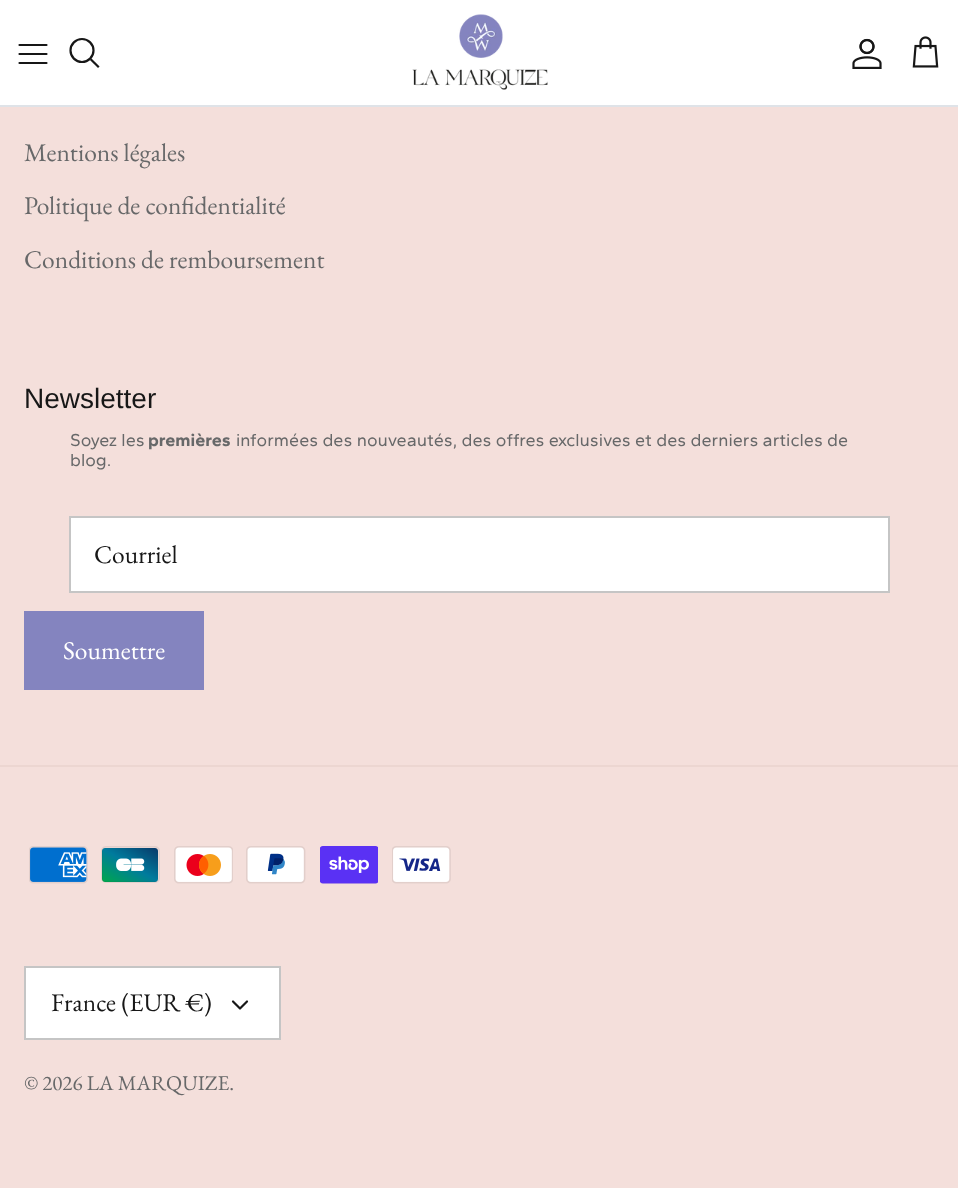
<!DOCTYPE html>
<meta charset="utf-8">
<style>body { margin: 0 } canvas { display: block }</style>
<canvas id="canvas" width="958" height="1188"></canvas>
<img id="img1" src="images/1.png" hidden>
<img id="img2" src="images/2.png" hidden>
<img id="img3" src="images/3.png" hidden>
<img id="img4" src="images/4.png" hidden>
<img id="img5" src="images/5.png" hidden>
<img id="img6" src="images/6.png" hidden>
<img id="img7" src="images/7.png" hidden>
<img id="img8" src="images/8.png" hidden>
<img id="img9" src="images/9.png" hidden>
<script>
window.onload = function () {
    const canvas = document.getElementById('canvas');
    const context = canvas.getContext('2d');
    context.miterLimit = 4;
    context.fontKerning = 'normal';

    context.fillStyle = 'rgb(244, 223, 219)';
    context.fillRect(0, 0, 958, 1188);
    context.fillStyle = 'rgb(255, 255, 255)';
    context.fillRect(0, 0, 958, 105);
    context.fillStyle = 'rgb(223, 227, 232)';
    context.fillRect(0, 105, 958, 2);
    context.beginPath();
    context.moveTo(19.5, 54);
    context.lineTo(46.5, 54);
    context.moveTo(19.5, 45);
    context.lineTo(46.5, 45);
    context.moveTo(19.5, 63);
    context.lineTo(46.5, 63);
    context.strokeStyle = 'rgb(23, 23, 23)';
    context.lineWidth = 2.2;
    context.lineCap = 'round';
    context.lineJoin = 'round';
    context.stroke();
    context.beginPath();
    context.arc(82, 50.5, 11.5, 0, 2 * Math.PI);
    context.stroke();
    context.beginPath();
    context.moveTo(91.5, 60);
    context.lineTo(98, 66.5);
    context.lineCap = 'square';
    context.lineJoin = 'miter';
    context.stroke();
    context.drawImage(document.getElementById('img1'), 412, 14, 136, 76);
    context.drawImage(document.getElementById('img2'), 852, 38, 30, 31);
    context.drawImage(document.getElementById('img3'), 912, 36, 27, 32);
    context.fillStyle = 'rgb(255, 255, 255)';
    context.beginPath();
    context.rect(70, 517, 819, 75);
    context.fill();
    context.strokeStyle = 'rgb(197, 197, 197)';
    context.lineWidth = 2;
    context.stroke();
    context.fillStyle = 'rgb(132, 132, 191)';
    context.fillRect(24, 611, 180, 79);
    context.fillStyle = 'rgb(236, 214, 209)';
    context.fillRect(0, 765, 958, 2);
    context.drawImage(document.getElementById('img4'), 29, 846, 59, 38);
    context.drawImage(document.getElementById('img5'), 101, 846, 59, 37);
    context.drawImage(document.getElementById('img6'), 174, 846, 59, 38);
    context.drawImage(document.getElementById('img7'), 246, 846, 60, 38);
    context.drawImage(document.getElementById('img8'), 320, 846, 58, 38);
    context.drawImage(document.getElementById('img9'), 392, 846, 59, 38);
    context.fillStyle = 'rgb(255, 255, 255)';
    context.beginPath();
    context.rect(25, 967, 255, 72);
    context.fill();
    context.stroke();
    context.beginPath();
    context.moveTo(233, 1001.5);
    context.lineTo(240, 1008.5);
    context.lineTo(247, 1001.5);
    context.strokeStyle = 'rgb(23, 23, 23)';
    context.lineWidth = 2.2;
    context.lineCap = 'round';
    context.lineJoin = 'round';
    context.stroke();
    context.font = '25.5px EB Garamond';
    context.fillStyle = 'rgb(103, 104, 105)';
    context.fillText('Mentions légales', 24, 161);
    context.fillText('Politique de confidentialité', 24, 214);
    context.fillText('Conditions de remboursement', 24, 268);
    context.font = '28px Liberation Sans';
    context.fillStyle = 'rgb(23, 23, 23)';
    context.fillText('Newsletter', 24, 408);
    context.font = '18px Gantari';
    context.fillStyle = 'rgb(103, 104, 105)';
    context.fillText('Soyez les', 70, 446);
    context.font = 'bold 18px Gantari';
    context.fillText('premières', 148, 446);
    context.font = '18px Gantari';
    context.fillText('informées des nouveautés, des offres exclusives et des derniers articles de', 236, 446);
    context.fillText('blog.', 70, 466);
    context.font = '25.5px EB Garamond';
    context.fillStyle = 'rgb(23, 23, 23)';
    context.fillText('Courriel', 94, 563);
    context.fillStyle = 'rgb(255, 255, 255)';
    context.fillText('Soumettre', 63, 659);
    context.fillStyle = 'rgb(23, 23, 23)';
    context.fillText('France (EUR €)', 51, 1011);
    context.font = '21px EB Garamond';
    context.fillStyle = 'rgb(103, 104, 105)';
    context.fillText('© 2026 LA MARQUIZE.', 24, 1090);
};
</script>
